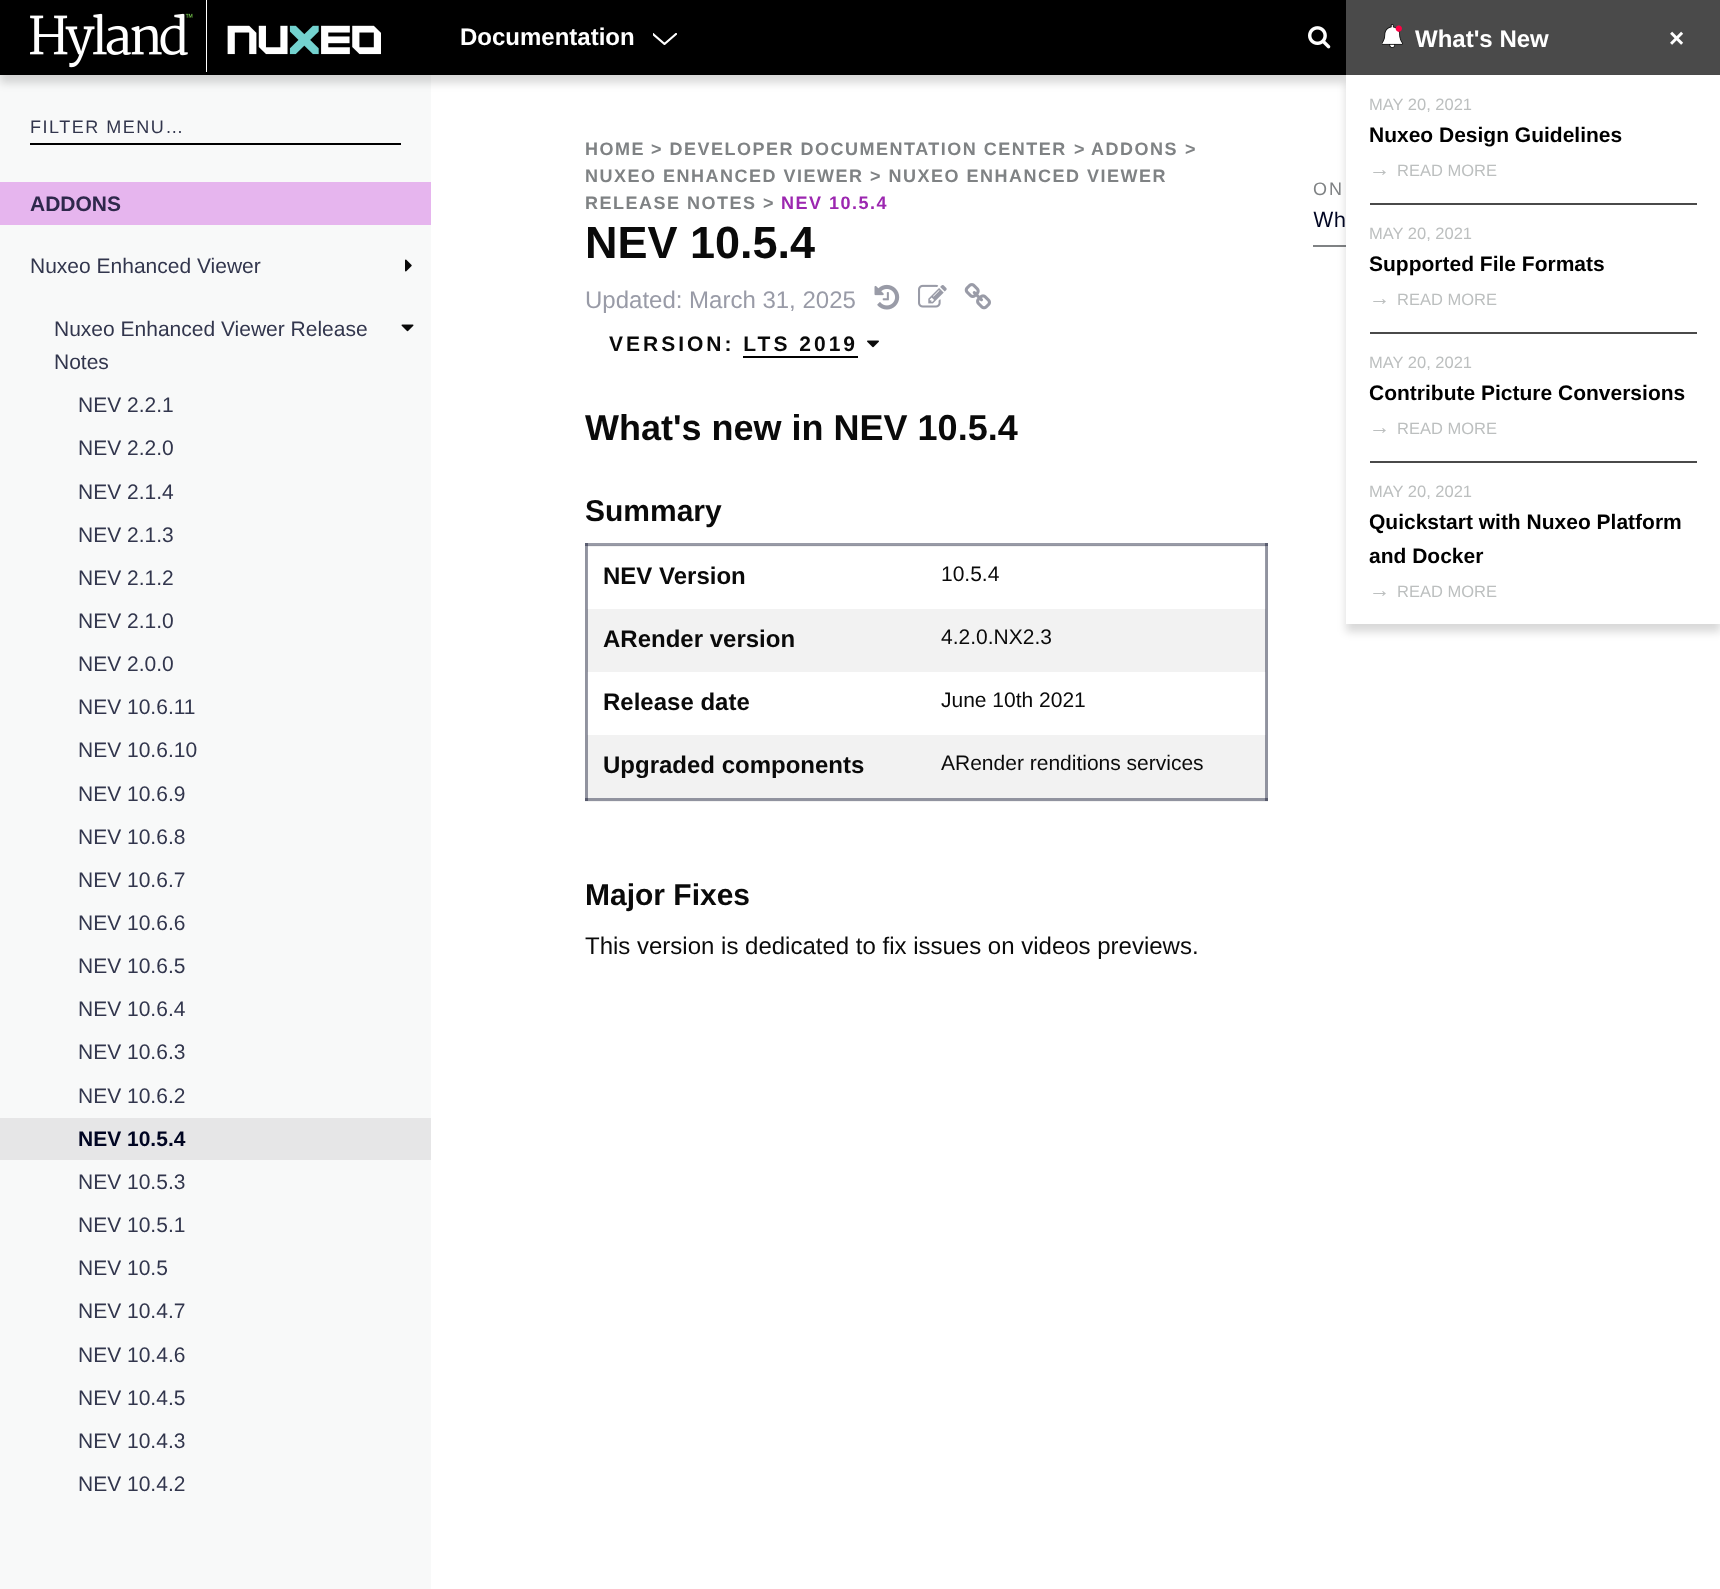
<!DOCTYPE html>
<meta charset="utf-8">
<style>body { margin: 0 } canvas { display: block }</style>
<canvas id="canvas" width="1720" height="1589"></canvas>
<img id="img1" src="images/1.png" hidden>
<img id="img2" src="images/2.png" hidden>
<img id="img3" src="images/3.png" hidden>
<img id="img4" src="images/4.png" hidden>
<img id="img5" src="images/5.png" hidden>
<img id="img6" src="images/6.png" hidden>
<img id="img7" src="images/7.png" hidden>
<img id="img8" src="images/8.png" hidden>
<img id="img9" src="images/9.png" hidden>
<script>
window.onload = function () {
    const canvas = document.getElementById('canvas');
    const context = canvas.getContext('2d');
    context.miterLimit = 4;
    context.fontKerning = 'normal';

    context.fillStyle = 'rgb(255, 255, 255)';
    context.fillRect(0, 0, 1720, 1589);
    context.fillStyle = 'rgb(153, 155, 167)';
    context.fillRect(587, 543, 1, 192);
    context.fillRect(1265, 543, 1, 192);
    context.fillRect(585, 543, 683, 2);
    context.fillStyle = 'rgb(92, 95, 114)';
    context.fillRect(585, 543, 3, 2);
    context.fillRect(1265, 543, 3, 2);
    context.fillStyle = 'rgb(248, 249, 249)';
    context.fillRect(0, 75, 431, 1514);
    context.fillStyle = 'rgba(0, 0, 0, 0.15)';
    context.filter = 'blur(4px)';
    context.beginPath();
    context.rect(0, 8, 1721, 75);
    context.fill();
    context.filter = 'none';
    context.fillStyle = 'rgb(0, 0, 0)';
    context.fillRect(0, 0, 1346, 75);
    context.drawImage(document.getElementById('img1'), 30, 0, 351, 72);
    context.save();
    context.beginPath();
    context.rect(653, 33, 24, 12);
    context.clip();
    context.beginPath();
    context.moveTo(653, 34);
    context.lineTo(664.5, 44);
    context.lineTo(676, 34);
    context.lineTo(664.5, 44);
    context.closePath();
    context.strokeStyle = 'rgb(255, 255, 255)';
    context.lineWidth = 2.2;
    context.lineCap = 'round';
    context.lineJoin = 'round';
    context.stroke();
    context.restore();
    context.drawImage(document.getElementById('img2'), 1308, 26, 23, 23);
    context.fillStyle = 'rgb(74, 74, 74)';
    context.fillRect(1346, 0, 374, 75);
    context.drawImage(document.getElementById('img3'), 1382, 24, 21, 24);
    context.fillStyle = 'rgb(127, 130, 132)';
    context.fillRect(1313, 245, 33, 2);
    context.fillStyle = 'rgba(0, 0, 0, 0.15)';
    context.filter = 'blur(4px)';
    context.beginPath();
    context.rect(1346, 83, 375, 549);
    context.fill();
    context.filter = 'none';
    context.fillStyle = 'rgb(255, 255, 255)';
    context.fillRect(1346, 75, 374, 549);
    context.fillStyle = 'rgb(74, 74, 74)';
    context.fillRect(1370, 203, 327, 2);
    context.fillRect(1370, 332, 327, 2);
    context.fillRect(1370, 461, 327, 2);
    context.fillStyle = 'rgb(0, 0, 0)';
    context.fillRect(30, 143, 371, 2);
    context.fillStyle = 'rgb(230, 181, 238)';
    context.fillRect(0, 182, 431, 43);
    context.drawImage(document.getElementById('img4'), 405, 259, 7, 13);
    context.drawImage(document.getElementById('img5'), 401, 324, 13, 8);
    context.fillStyle = 'rgb(230, 230, 231)';
    context.fillRect(0, 1118, 431, 42);
    context.drawImage(document.getElementById('img6'), 874, 284, 26, 26);
    context.drawImage(document.getElementById('img7'), 918, 284, 29, 24);
    context.drawImage(document.getElementById('img8'), 964, 283, 27, 27);
    context.drawImage(document.getElementById('img9'), 867, 340, 12, 8);
    context.fillStyle = 'rgb(0, 0, 0)';
    context.fillRect(743, 356, 115, 2);
    context.fillStyle = 'rgb(242, 242, 242)';
    context.fillRect(585, 546, 683, 1);
    context.fillStyle = 'rgb(145, 147, 159)';
    context.fillRect(585, 546, 3, 1);
    context.fillRect(1265, 546, 3, 1);
    context.fillRect(585, 545, 683, 1);
    context.fillStyle = 'rgb(87, 90, 109)';
    context.fillRect(585, 545, 3, 1);
    context.fillRect(1265, 545, 3, 1);
    context.fillStyle = 'rgb(145, 147, 159)';
    context.fillRect(1266, 545, 2, 256);
    context.fillStyle = 'rgb(87, 90, 109)';
    context.fillRect(1266, 798, 2, 3);
    context.fillRect(1266, 545, 2, 1);
    context.fillStyle = 'rgb(242, 242, 242)';
    context.fillRect(585, 801, 683, 1);
    context.fillStyle = 'rgb(145, 147, 159)';
    context.fillRect(585, 800, 683, 1);
    context.fillStyle = 'rgb(87, 90, 109)';
    context.fillRect(585, 800, 3, 1);
    context.fillRect(1265, 800, 3, 1);
    context.fillStyle = 'rgb(145, 147, 159)';
    context.fillRect(585, 545, 2, 256);
    context.fillStyle = 'rgb(87, 90, 109)';
    context.fillRect(585, 798, 2, 3);
    context.fillRect(585, 545, 2, 1);
    context.fillStyle = 'rgb(242, 242, 242)';
    context.fillRect(588, 609, 677, 63);
    context.fillStyle = 'rgb(145, 147, 159)';
    context.fillRect(587, 609, 1, 63);
    context.fillRect(1265, 609, 1, 63);
    context.fillStyle = 'rgb(242, 242, 242)';
    context.fillRect(588, 735, 677, 63);
    context.fillStyle = 'rgb(145, 147, 159)';
    context.fillRect(587, 735, 1, 65);
    context.fillRect(587, 798, 679, 2);
    context.fillStyle = 'rgb(87, 90, 109)';
    context.fillRect(587, 798, 1, 2);
    context.fillStyle = 'rgb(145, 147, 159)';
    context.fillRect(1265, 735, 1, 65);
    context.fillStyle = 'rgb(87, 90, 109)';
    context.fillRect(1265, 798, 1, 2);
    context.font = 'bold 24px Liberation Sans';
    context.fillStyle = 'rgb(255, 255, 255)';
    context.fillText('Documentation', 460, 45);
    context.fillText('What\'s New', 1415, 47);
    context.font = 'bold 26px Liberation Sans';
    context.fillText('×', 1669, 47);
    context.font = '16.5px Liberation Sans';
    context.fillStyle = 'rgb(188, 191, 191)';
    context.fillText('MAY 20, 2021', 1369, 110);
    context.font = 'bold 21px Liberation Sans';
    context.fillStyle = 'rgb(0, 0, 0)';
    context.fillText('Nuxeo Design Guidelines', 1369, 142);
    context.font = '21px Liberation Sans';
    context.fillStyle = 'rgb(188, 191, 191)';
    context.fillText('→', 1369, 176);
    context.font = '16.5px Liberation Sans';
    context.fillText('READ MORE', 1397, 176);
    context.fillText('MAY 20, 2021', 1369, 239);
    context.font = 'bold 21px Liberation Sans';
    context.fillStyle = 'rgb(0, 0, 0)';
    context.fillText('Supported File Formats', 1369, 271);
    context.font = '21px Liberation Sans';
    context.fillStyle = 'rgb(188, 191, 191)';
    context.fillText('→', 1369, 305);
    context.font = '16.5px Liberation Sans';
    context.fillText('READ MORE', 1397, 305);
    context.fillText('MAY 20, 2021', 1369, 368);
    context.font = 'bold 21px Liberation Sans';
    context.fillStyle = 'rgb(0, 0, 0)';
    context.fillText('Contribute Picture Conversions', 1369, 400);
    context.font = '21px Liberation Sans';
    context.fillStyle = 'rgb(188, 191, 191)';
    context.fillText('→', 1369, 434);
    context.font = '16.5px Liberation Sans';
    context.fillText('READ MORE', 1397, 434);
    context.fillText('MAY 20, 2021', 1369, 497);
    context.font = 'bold 21px Liberation Sans';
    context.fillStyle = 'rgb(0, 0, 0)';
    context.fillText('Quickstart with Nuxeo Platform', 1369, 529);
    context.fillText('and Docker', 1369, 563);
    context.font = '21px Liberation Sans';
    context.fillStyle = 'rgb(188, 191, 191)';
    context.fillText('→', 1369, 597);
    context.font = '16.5px Liberation Sans';
    context.fillText('READ MORE', 1397, 597);
    context.letterSpacing = '1.5px';
    context.font = '18px Liberation Sans';
    context.fillStyle = 'rgb(50, 54, 77)';
    context.fillText('FILTER MENU…', 30, 133);
    context.letterSpacing = '0px';
    context.font = 'bold 21px Liberation Sans';
    context.fillStyle = 'rgb(46, 40, 75)';
    context.fillText('ADDONS', 30, 211);
    context.font = '21px Liberation Sans';
    context.fillStyle = 'rgb(50, 54, 77)';
    context.fillText('Nuxeo Enhanced Viewer', 30, 273);
    context.fillText('Nuxeo Enhanced Viewer Release', 54, 336);
    context.fillText('Notes', 54, 369);
    context.fillText('NEV 2.2.1', 78, 412);
    context.fillText('NEV 2.2.0', 78, 455);
    context.fillText('NEV 2.1.4', 78, 499);
    context.fillText('NEV 2.1.3', 78, 542);
    context.fillText('NEV 2.1.2', 78, 585);
    context.fillText('NEV 2.1.0', 78, 628);
    context.fillText('NEV 2.0.0', 78, 671);
    context.fillText('NEV 10.6.11', 78, 714);
    context.fillText('NEV 10.6.10', 78, 757);
    context.fillText('NEV 10.6.9', 78, 801);
    context.fillText('NEV 10.6.8', 78, 844);
    context.fillText('NEV 10.6.7', 78, 887);
    context.fillText('NEV 10.6.6', 78, 930);
    context.fillText('NEV 10.6.5', 78, 973);
    context.fillText('NEV 10.6.4', 78, 1016);
    context.fillText('NEV 10.6.3', 78, 1059);
    context.fillText('NEV 10.6.2', 78, 1103);
    context.font = 'bold 21px Liberation Sans';
    context.fillStyle = 'rgb(0, 5, 34)';
    context.fillText('NEV 10.5.4', 78, 1146);
    context.font = '21px Liberation Sans';
    context.fillStyle = 'rgb(50, 54, 77)';
    context.fillText('NEV 10.5.3', 78, 1189);
    context.fillText('NEV 10.5.1', 78, 1232);
    context.fillText('NEV 10.5', 78, 1275);
    context.fillText('NEV 10.4.7', 78, 1318);
    context.fillText('NEV 10.4.6', 78, 1362);
    context.fillText('NEV 10.4.5', 78, 1405);
    context.fillText('NEV 10.4.3', 78, 1448);
    context.fillText('NEV 10.4.2', 78, 1491);
    context.letterSpacing = '1.5px';
    context.font = 'bold 18px Liberation Sans';
    context.fillStyle = 'rgb(127, 130, 132)';
    context.fillText('HOME', 585, 155);
    context.fillText('> DEVELOPER DOCUMENTATION CENTER', 651, 155);
    context.fillText('>', 1074, 155);
    context.fillText('ADDONS', 1091, 155);
    context.fillText('>', 1185, 155);
    context.fillText('NUXEO ENHANCED VIEWER', 585, 182);
    context.fillText('> NUXEO ENHANCED VIEWER', 870, 182);
    context.fillText('RELEASE NOTES', 585, 209);
    context.fillText('>', 763, 209);
    context.fillStyle = 'rgb(156, 39, 176)';
    context.fillText('NEV 10.5.4', 781, 209);
    context.letterSpacing = '0px';
    context.font = 'bold 45px Liberation Sans';
    context.fillStyle = 'rgb(10, 10, 10)';
    context.fillText('NEV 10.5.4', 585, 258);
    context.font = '24px Liberation Sans';
    context.fillStyle = 'rgb(153, 155, 167)';
    context.fillText('Updated: March 31, 2025', 585, 308);
    context.letterSpacing = '3px';
    context.font = 'bold 21px Liberation Sans';
    context.fillStyle = 'rgb(10, 10, 10)';
    context.fillText('VERSION: LTS 2019', 609, 351);
    context.letterSpacing = '0px';
    context.font = 'bold 36px Liberation Sans';
    context.fillText('What\'s new in NEV 10.5.4', 585, 440);
    context.font = 'bold 30px Liberation Sans';
    context.fillText('Summary', 585, 521);
    context.font = 'bold 24px Liberation Sans';
    context.fillText('NEV Version', 603, 584);
    context.font = '21px Liberation Sans';
    context.fillText('10.5.4', 941, 581);
    context.font = 'bold 24px Liberation Sans';
    context.fillText('ARender version', 603, 647);
    context.font = '21px Liberation Sans';
    context.fillText('4.2.0.NX2.3', 941, 644);
    context.font = 'bold 24px Liberation Sans';
    context.fillText('Release date', 603, 710);
    context.font = '21px Liberation Sans';
    context.fillText('June 10th 2021', 941, 707);
    context.font = 'bold 24px Liberation Sans';
    context.fillText('Upgraded components', 603, 773);
    context.font = '21px Liberation Sans';
    context.fillText('ARender renditions services', 941, 770);
    context.font = 'bold 30px Liberation Sans';
    context.fillText('Major Fixes', 585, 905);
    context.font = '24px Liberation Sans';
    context.fillText('This version is dedicated to fix issues on videos previews.', 585, 954);
    context.letterSpacing = '2px';
    context.font = '18px Liberation Sans';
    context.fillStyle = 'rgb(127, 130, 132)';
    context.fillText('ON', 1313, 195);
    context.letterSpacing = '0px';
    context.font = '21px Inter';
    context.fillStyle = 'rgb(0, 5, 34)';
    context.fillText('Wh', 1313, 227);
};
</script>
